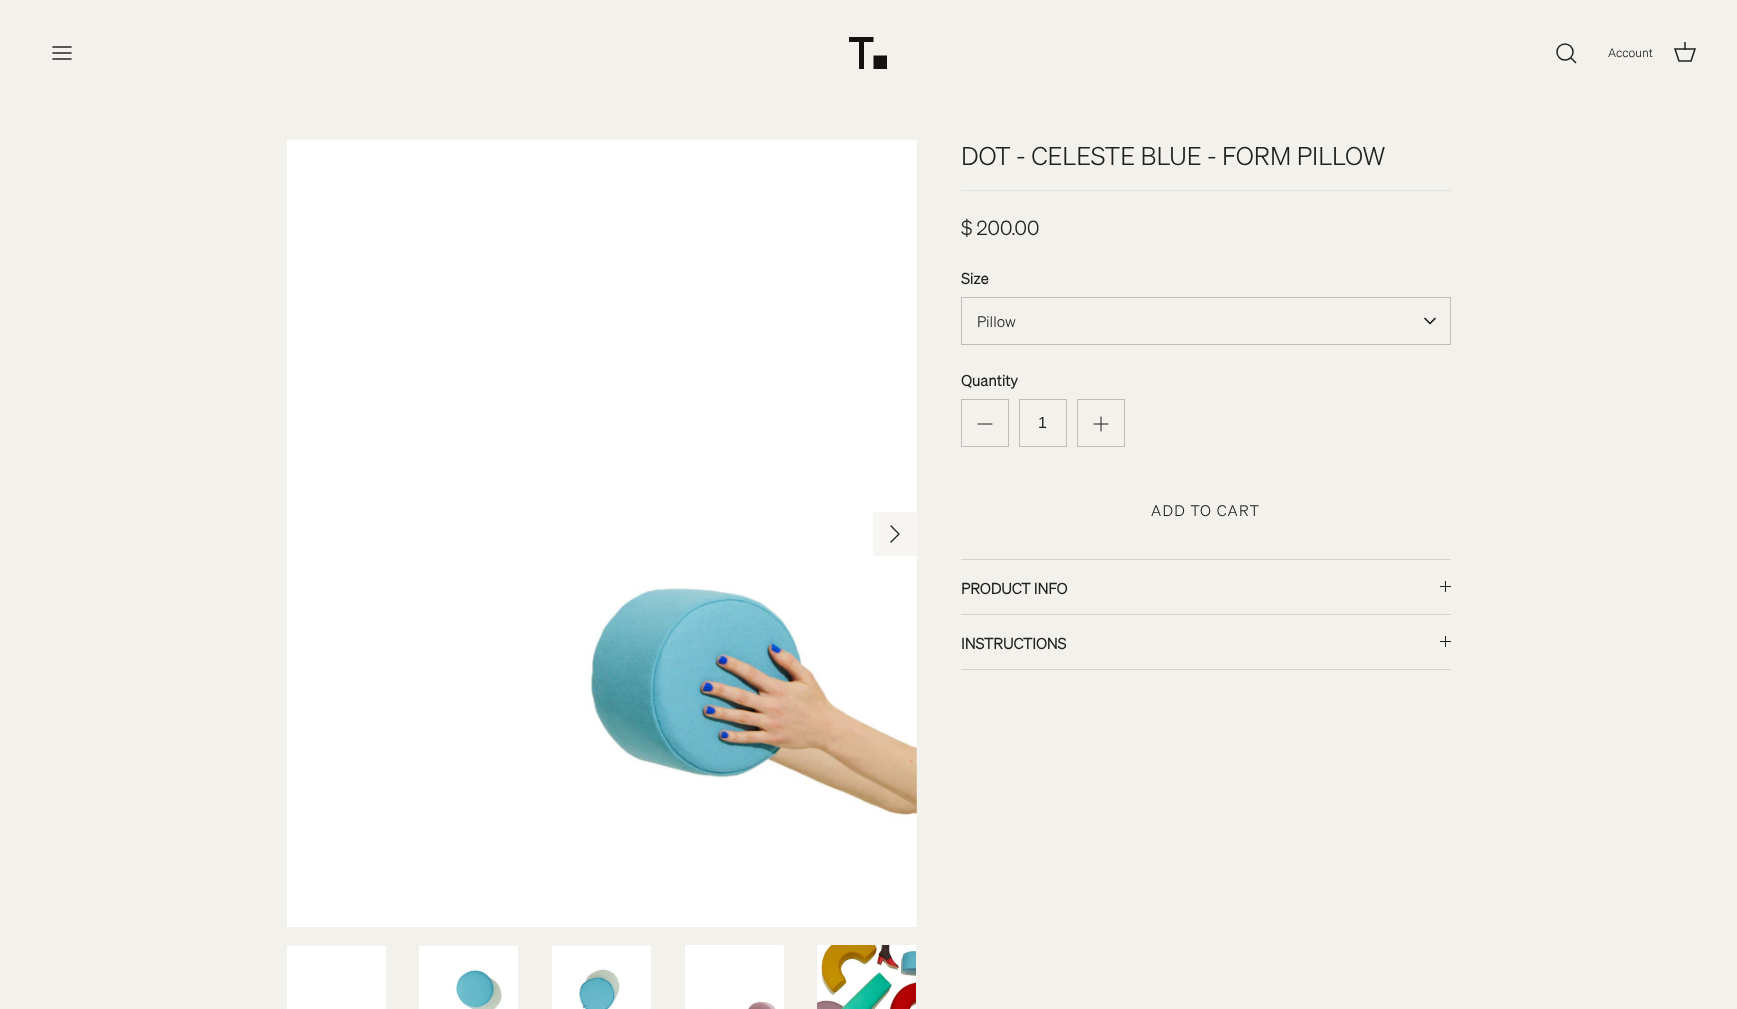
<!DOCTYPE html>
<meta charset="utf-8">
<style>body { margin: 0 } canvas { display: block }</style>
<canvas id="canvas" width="1737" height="1009"></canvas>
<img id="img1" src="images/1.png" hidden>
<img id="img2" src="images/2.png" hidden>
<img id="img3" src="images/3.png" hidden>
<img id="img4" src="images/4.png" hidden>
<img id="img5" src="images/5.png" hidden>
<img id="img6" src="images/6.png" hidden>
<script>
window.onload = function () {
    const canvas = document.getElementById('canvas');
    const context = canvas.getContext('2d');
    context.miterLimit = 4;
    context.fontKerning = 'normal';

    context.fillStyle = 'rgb(243, 241, 236)';
    context.fillRect(0, 0, 1737, 1009);
    context.drawImage(document.getElementById('img1'), 52, 46, 20, 14);
    context.fillStyle = 'rgb(20, 18, 16)';
    context.beginPath();
    context.moveTo(873.5, 55.5);
    context.lineTo(887, 55.5);
    context.lineTo(887, 69);
    context.lineTo(873.5, 69);
    context.closePath();
    context.moveTo(864, 42);
    context.lineTo(864, 69);
    context.lineTo(859, 69);
    context.lineTo(859, 42);
    context.lineTo(849, 42);
    context.lineTo(849, 37);
    context.lineTo(873.5, 37);
    context.lineTo(873.5, 42);
    context.closePath();
    context.fill();
    context.beginPath();
    context.arc(1565, 52, 8, 0, 2 * Math.PI);
    context.strokeStyle = 'rgb(33, 33, 33)';
    context.lineWidth = 1.5;
    context.stroke();
    context.beginPath();
    context.moveTo(1571, 58);
    context.lineTo(1575.5, 62.5);
    context.lineCap = 'square';
    context.stroke();
    context.beginPath();
    context.moveTo(1675, 49);
    context.lineTo(1695, 49);
    context.lineTo(1691, 61);
    context.lineTo(1679, 61);
    context.closePath();
    context.lineCap = 'butt';
    context.stroke();
    context.fillStyle = 'rgba(33, 33, 33, 0.75)';
    context.fillRect(1684, 42, 2, 8);
    context.drawImage(document.getElementById('img2'), 287, 140, 630, 787);
    context.fillStyle = 'rgba(243, 241, 236, 0.7)';
    context.fillRect(873, 512, 44, 44);
    context.beginPath();
    context.moveTo(891, 542);
    context.lineTo(899, 534);
    context.lineTo(891, 526);
    context.lineWidth = 1.3;
    context.lineCap = 'round';
    context.lineJoin = 'round';
    context.stroke();
    context.fillStyle = 'rgb(255, 255, 255)';
    context.fillRect(287, 946, 99, 63);
    context.drawImage(document.getElementById('img3'), 419, 946, 99, 63);
    context.drawImage(document.getElementById('img4'), 552, 946, 99, 63);
    context.drawImage(document.getElementById('img5'), 685, 945, 99, 64);
    context.drawImage(document.getElementById('img6'), 817, 945, 99, 64);
    context.fillStyle = 'rgb(226, 226, 226)';
    context.fillRect(961, 190, 490, 1);
    context.strokeStyle = 'rgb(191, 189, 185)';
    context.lineWidth = 1;
    context.lineJoin = 'miter';
    context.strokeRect(961.5, 297.5, 489, 47);
    context.beginPath();
    context.moveTo(1425, 318.5);
    context.lineTo(1430, 323.5);
    context.lineTo(1435, 318.5);
    context.strokeStyle = 'rgb(33, 33, 33)';
    context.lineWidth = 1.7;
    context.lineJoin = 'round';
    context.stroke();
    context.strokeStyle = 'rgb(191, 189, 185)';
    context.lineWidth = 1;
    context.lineJoin = 'miter';
    context.strokeRect(961.5, 399.5, 47, 47);
    context.beginPath();
    context.moveTo(978, 424);
    context.lineTo(992, 424);
    context.strokeStyle = 'rgb(33, 33, 33)';
    context.lineJoin = 'round';
    context.stroke();
    context.strokeStyle = 'rgb(191, 189, 185)';
    context.lineJoin = 'miter';
    context.strokeRect(1019.5, 399.5, 47, 47);
    context.strokeRect(1077.5, 399.5, 47, 47);
    context.beginPath();
    context.moveTo(1101, 417);
    context.lineTo(1101, 431);
    context.moveTo(1094, 424);
    context.lineTo(1108, 424);
    context.strokeStyle = 'rgb(33, 33, 33)';
    context.lineJoin = 'round';
    context.stroke();
    context.fillStyle = 'rgb(212, 210, 206)';
    context.fillRect(961, 559, 490, 1);
    context.fillRect(961, 614, 490, 1);
    context.fillStyle = 'rgb(33, 33, 33)';
    context.fillRect(1445, 581, 1, 11);
    context.fillRect(1440, 586, 11, 1);
    context.fillStyle = 'rgb(212, 210, 206)';
    context.fillRect(961, 669, 490, 1);
    context.fillStyle = 'rgb(33, 33, 33)';
    context.fillRect(1445, 636, 1, 11);
    context.fillRect(1440, 641, 11, 1);
    context.font = '300 12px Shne';
    context.fillText('Account', 1608, 57);
    context.font = '300 25px Shne';
    context.fillText('DOT - CELESTE BLUE - FORM PILLOW', 961, 165);
    context.font = '300 20px Shne';
    context.fillText('$ 200.00', 961, 235);
    context.font = 'bold 15px Shne';
    context.fillText('Size', 961, 284);
    context.font = '300 15px Shne';
    context.fillText('Pillow', 977, 327);
    context.font = 'bold 15px Shne';
    context.fillText('Quantity', 961, 386);
    context.font = '16px Liberation Sans';
    context.fillText('1', 1038, 428);
    context.letterSpacing = '1.25px';
    context.font = '300 15px Shne';
    context.fillText('ADD TO CART', 1151, 516);
    context.letterSpacing = '0px';
    context.font = 'bold 15px Shne';
    context.fillText('PRODUCT INFO', 961, 594);
    context.fillText('INSTRUCTIONS', 961, 649);
};
</script>
